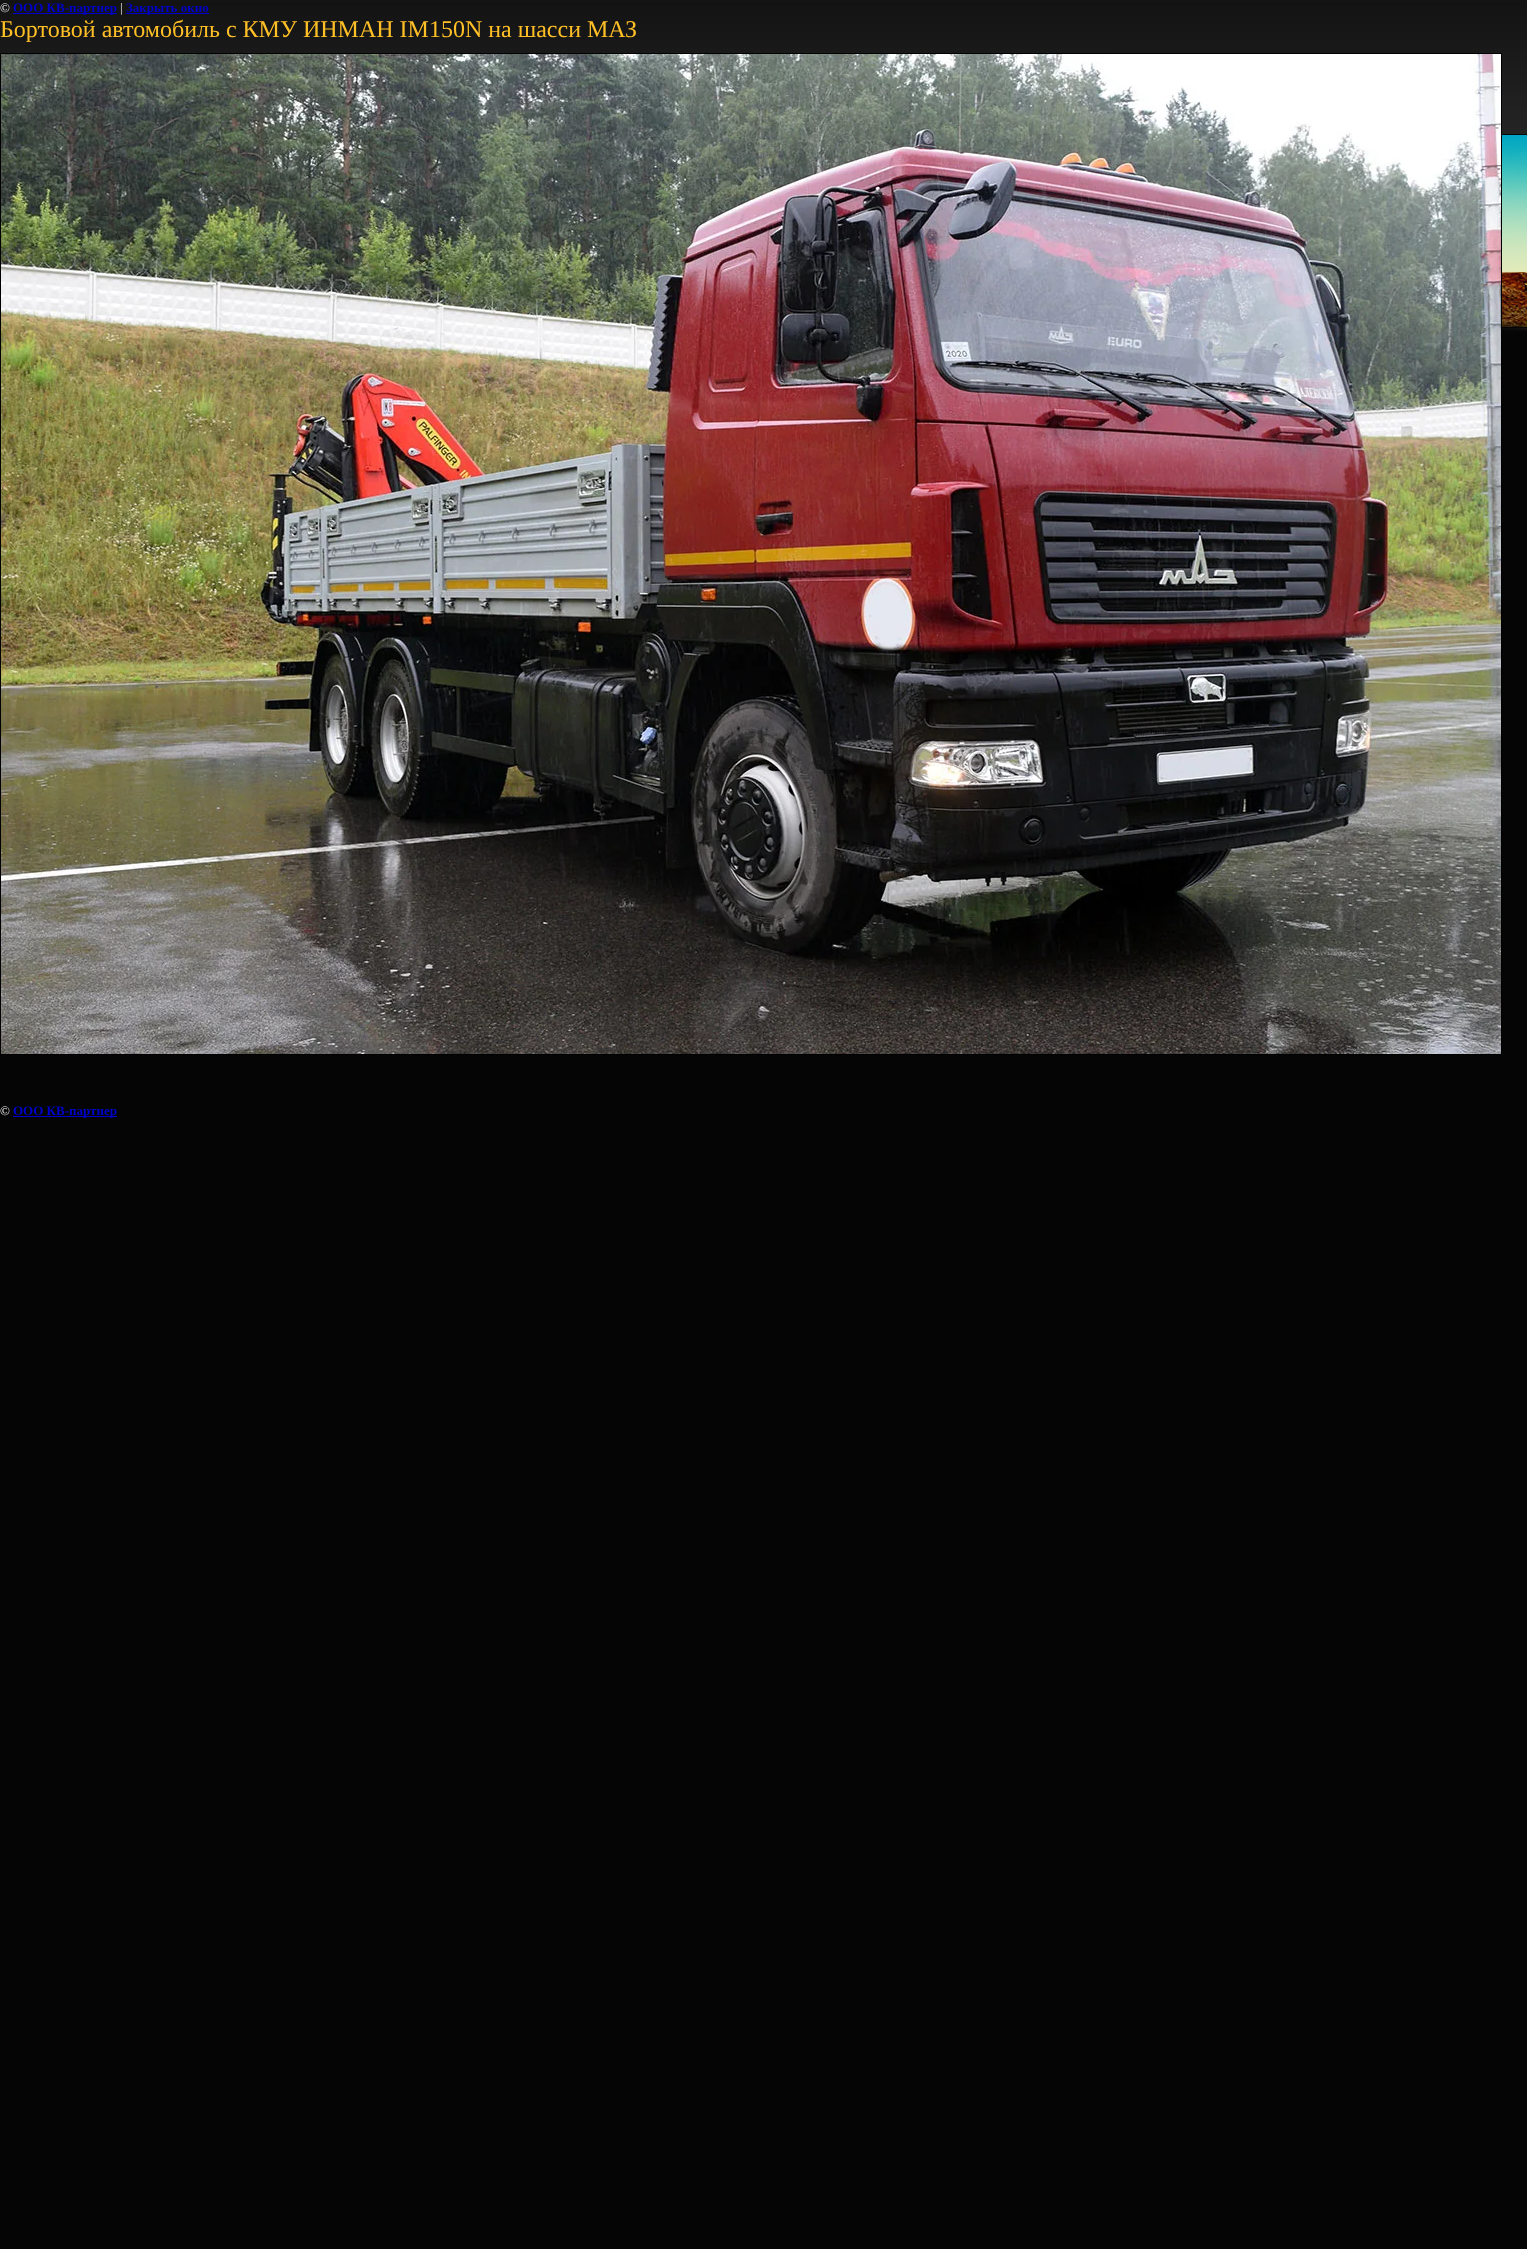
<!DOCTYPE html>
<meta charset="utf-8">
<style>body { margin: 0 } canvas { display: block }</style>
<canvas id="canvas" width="1527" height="2249"></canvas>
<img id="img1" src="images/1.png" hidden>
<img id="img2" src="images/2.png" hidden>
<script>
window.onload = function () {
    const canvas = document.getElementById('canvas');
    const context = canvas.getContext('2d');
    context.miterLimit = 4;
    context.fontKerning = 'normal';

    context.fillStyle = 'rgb(5, 5, 5)';
    context.fillRect(0, 0, 1527, 2249);
    context.drawImage(document.getElementById('img1'), 0, 0, 1527, 332);
    context.fillStyle = 'rgb(0, 0, 204)';
    context.fillRect(13, 13, 104, 1);
    context.fillRect(126, 13, 83, 1);
    context.strokeStyle = 'rgb(0, 0, 0)';
    context.strokeRect(0.5, 53.5, 1501, 1001);
    context.drawImage(document.getElementById('img2'), 1, 54, 1500, 1000);
    context.fillRect(13, 1116, 104, 1);
    context.font = '13px Liberation Serif';
    context.fillStyle = 'rgb(239, 239, 239)';
    context.fillText('©', 0, 12);
    context.font = 'bold 13px Liberation Serif';
    context.fillStyle = 'rgb(0, 0, 204)';
    context.fillText('ООО КВ-партнер', 13, 12);
    context.font = '13px Liberation Serif';
    context.fillStyle = 'rgb(239, 239, 239)';
    context.fillText('|', 120, 12);
    context.font = 'bold 13px Liberation Serif';
    context.fillStyle = 'rgb(0, 0, 204)';
    context.fillText('Закрыть окно', 126, 12);
    context.font = '24px Liberation Serif';
    context.fillStyle = 'rgb(255, 191, 38)';
    context.fillText('Бортовой автомобиль с КМУ ИНМАН IM150N на шасси МАЗ', 0, 37);
    context.font = '13px Liberation Serif';
    context.fillStyle = 'rgb(239, 239, 239)';
    context.fillText('©', 0, 1115);
    context.font = 'bold 13px Liberation Serif';
    context.fillStyle = 'rgb(0, 0, 204)';
    context.fillText('ООО КВ-партнер', 13, 1115);
};
</script>
